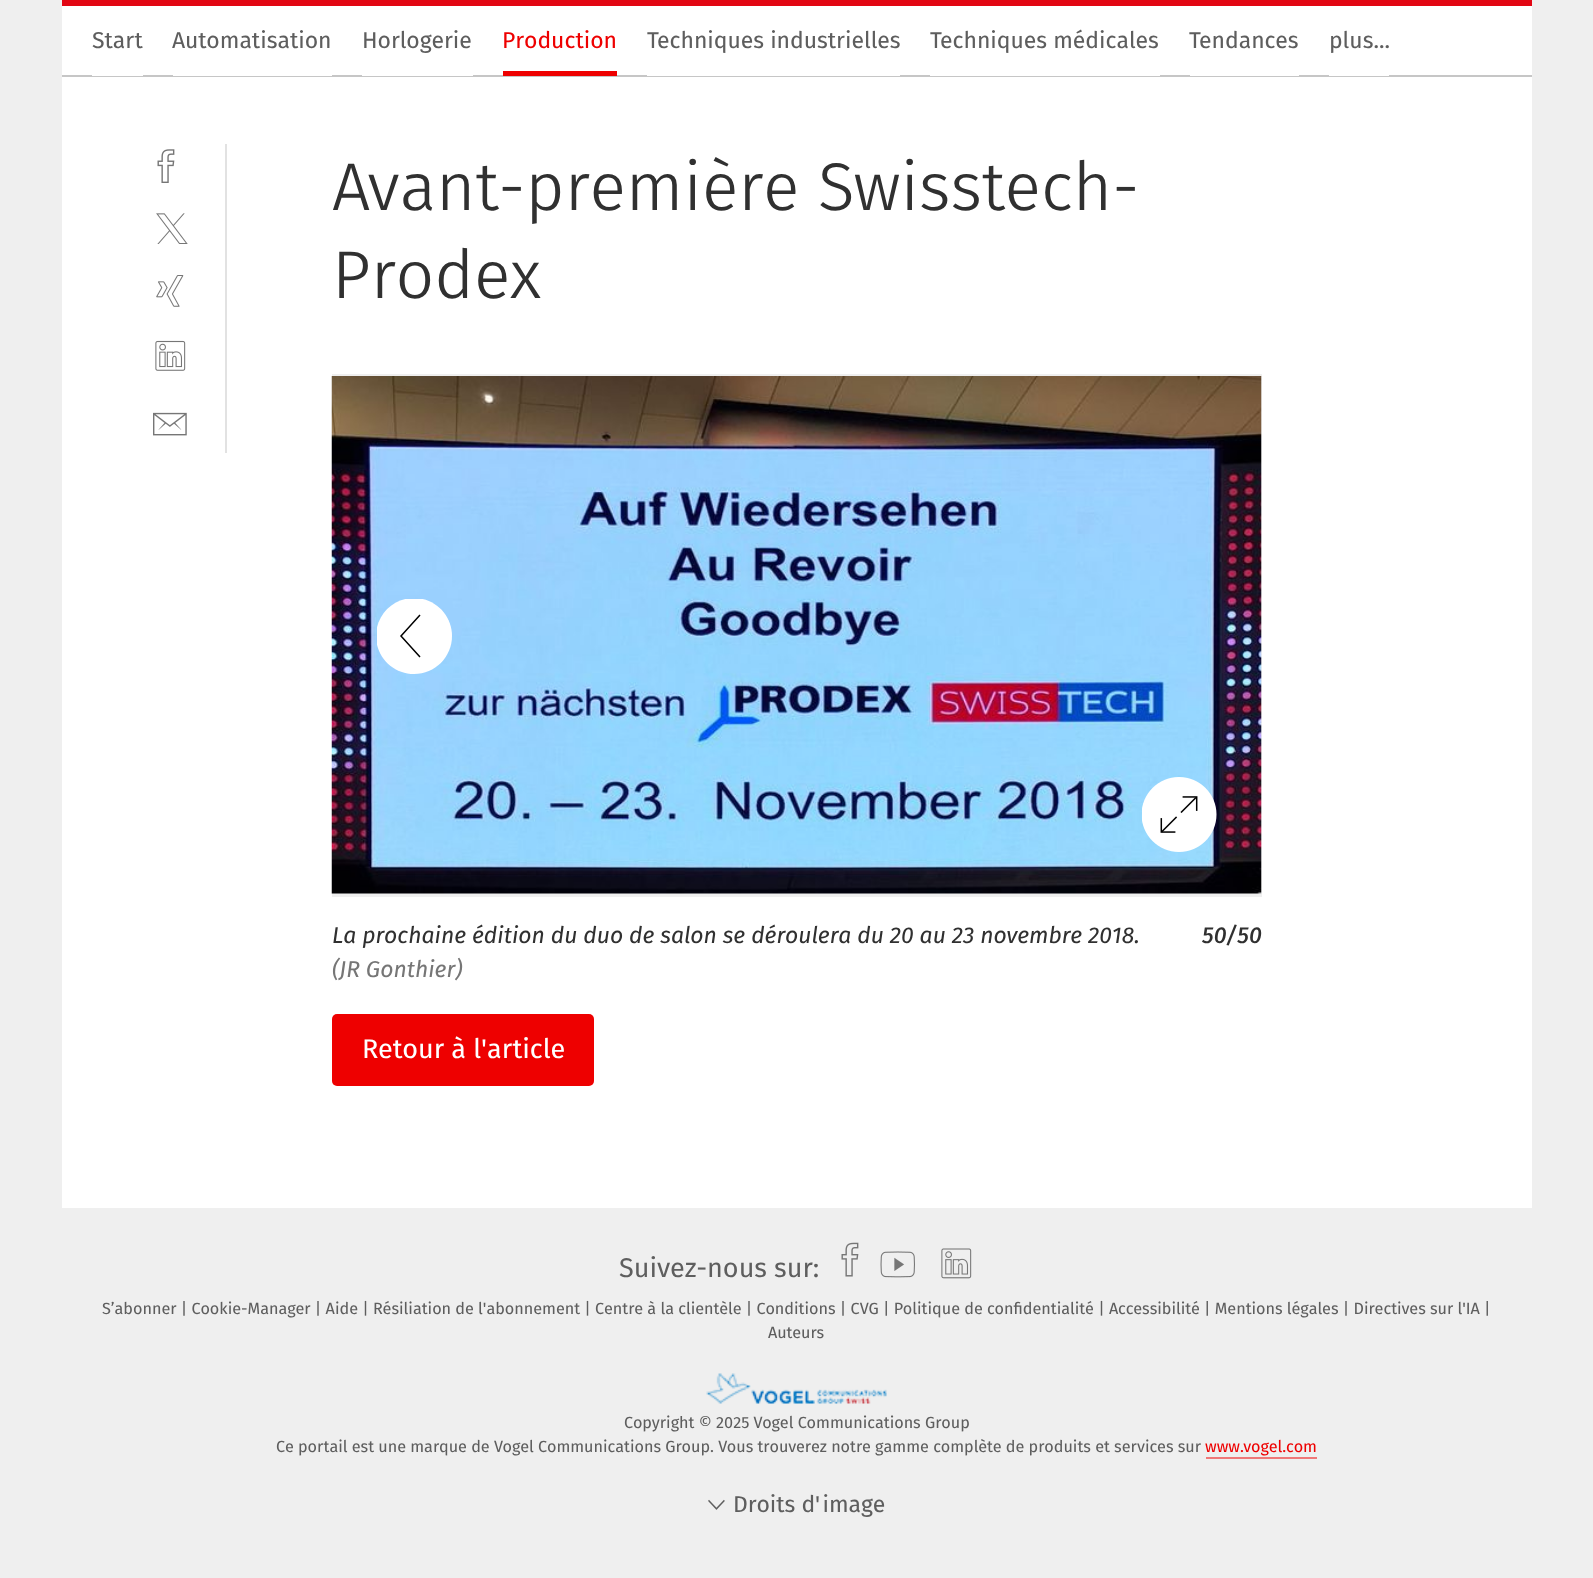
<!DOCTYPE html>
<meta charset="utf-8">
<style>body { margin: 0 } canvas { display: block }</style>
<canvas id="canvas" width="1593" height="1578"></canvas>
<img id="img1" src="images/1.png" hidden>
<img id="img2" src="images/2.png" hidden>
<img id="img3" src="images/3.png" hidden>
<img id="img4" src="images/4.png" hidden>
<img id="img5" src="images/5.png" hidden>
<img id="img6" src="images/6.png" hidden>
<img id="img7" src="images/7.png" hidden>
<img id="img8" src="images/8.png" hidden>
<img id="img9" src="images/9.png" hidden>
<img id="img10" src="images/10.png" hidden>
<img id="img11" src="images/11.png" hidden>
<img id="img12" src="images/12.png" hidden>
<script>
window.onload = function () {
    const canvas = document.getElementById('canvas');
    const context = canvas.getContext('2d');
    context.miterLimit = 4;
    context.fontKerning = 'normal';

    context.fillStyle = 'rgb(239, 239, 239)';
    context.fillRect(0, 0, 1593, 1578);
    context.fillStyle = 'rgb(255, 255, 255)';
    context.fillRect(62, 77, 1470, 1131);
    context.fillStyle = 'rgb(198, 198, 198)';
    context.fillRect(62, 75, 1470, 2);
    context.fillStyle = 'rgb(226, 6, 19)';
    context.fillRect(62, 0, 1470, 6);
    context.fillStyle = 'rgb(255, 255, 255)';
    context.fillRect(62, 6, 1470, 69);
    context.fillRect(92, 75, 51, 1);
    context.fillRect(173, 75, 159, 1);
    context.fillRect(362, 75, 111, 1);
    context.fillStyle = 'rgb(238, 0, 0)';
    context.fillRect(503, 71, 114, 5);
    context.fillStyle = 'rgb(255, 255, 255)';
    context.fillRect(647, 75, 253, 1);
    context.fillRect(930, 75, 230, 1);
    context.fillRect(1190, 75, 109, 1);
    context.fillRect(1329, 75, 60, 1);
    context.fillStyle = 'rgb(226, 226, 226)';
    context.fillRect(225, 144, 2, 309);
    context.drawImage(document.getElementById('img1'), 157, 149, 18, 34);
    context.drawImage(document.getElementById('img2'), 156, 213, 32, 31);
    context.drawImage(document.getElementById('img3'), 156, 275, 28, 32);
    context.drawImage(document.getElementById('img4'), 155, 340, 31, 31);
    context.drawImage(document.getElementById('img5'), 153, 412, 34, 24);
    context.fillStyle = 'rgb(239, 239, 239)';
    context.fillRect(332, 374, 930, 523);
    context.drawImage(document.getElementById('img6'), 331, 376, 931, 518);
    context.save();
    context.beginPath();
    context.rect(377, 599, 75, 75);
    context.clip();
    context.fillStyle = 'rgb(255, 255, 255)';
    context.beginPath();
    context.moveTo(414, 674);
    context.bezierCurveTo(435, 674, 452, 657, 452, 636);
    context.bezierCurveTo(452, 615, 435, 598, 414, 598);
    context.bezierCurveTo(393, 598, 376, 615, 376, 636);
    context.bezierCurveTo(376, 657, 393, 674, 414, 674);
    context.fill();
    context.restore();
    context.beginPath();
    context.moveTo(420, 615);
    context.lineTo(401, 636);
    context.lineTo(420, 657);
    context.strokeStyle = 'rgb(0, 0, 0)';
    context.lineWidth = 1.5;
    context.stroke();
    context.drawImage(document.getElementById('img7'), 1142, 777, 75, 75);
    context.fillStyle = 'rgb(238, 0, 0)';
    context.beginPath();
    context.roundRect(332, 1014, 262, 72, 5);
    context.fill();
    context.drawImage(document.getElementById('img8'), 841, 1242, 18, 35);
    context.drawImage(document.getElementById('img9'), 880, 1251, 35, 27);
    context.drawImage(document.getElementById('img10'), 941, 1248, 31, 31);
    context.drawImage(document.getElementById('img11'), 706, 1373, 181, 31);
    context.fillStyle = 'rgb(239, 120, 120)';
    context.fillRect(1206, 1457, 111, 2);
    context.drawImage(document.getElementById('img12'), 708, 1499, 17, 11);
    context.font = '22.95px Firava';
    context.fillStyle = 'rgb(94, 94, 94)';
    context.fillText('Start', 92, 48);
    context.fillText('Automatisation', 172, 48);
    context.fillText('Horlogerie', 362, 48);
    context.fillStyle = 'rgb(238, 0, 0)';
    context.fillText('Production', 502, 48);
    context.fillStyle = 'rgb(94, 94, 94)';
    context.fillText('Techniques industrielles', 647, 48);
    context.fillText('Techniques médicales', 930, 48);
    context.fillText('Tendances', 1189, 48);
    context.fillText('plus...', 1329, 48);
    context.font = '300 67.5px Firava';
    context.fillStyle = 'rgb(48, 48, 48)';
    context.fillText('Avant-première Swisstech-', 332, 210);
    context.fillText('Prodex', 332, 298);
    context.font = 'italic 22.95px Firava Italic';
    context.fillText('La prochaine édition du duo de salon se déroulera du 20 au 23 novembre 2018.', 332, 943);
    context.fillStyle = 'rgb(118, 118, 118)';
    context.fillText('(JR Gonthier)', 332, 977);
    context.font = 'italic 500 22.95px Firava Italic';
    context.fillStyle = 'rgb(48, 48, 48)';
    context.fillText('50/50', 1202, 943);
    context.font = '27px Firava';
    context.fillStyle = 'rgb(255, 255, 255)';
    context.fillText('Retour à l\'article', 362, 1058);
    context.font = '27px "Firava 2"';
    context.fillStyle = 'rgb(94, 94, 94)';
    context.fillText('Suivez-nous sur:', 619, 1277);
    context.font = '16.2px Firava';
    context.fillText('S’abonner | Cookie-Manager | Aide | Résiliation de l\'abonnement | Centre à la clientèle | Conditions | CVG | Politique de confidentialité | Accessibilité | Mentions légales | Directives sur l\'IA |', 102, 1314);
    context.fillText('Auteurs', 768, 1338);
    context.fillText('Copyright © 2025 Vogel Communications Group', 624, 1428);
    context.fillText('Ce portail est une marque de Vogel Communications Group. Vous trouverez notre gamme complète de produits et services sur', 276, 1452);
    context.fillStyle = 'rgb(238, 0, 0)';
    context.fillText('www.vogel.com', 1205, 1452);
    context.font = '22.95px Firava';
    context.fillStyle = 'rgb(94, 94, 94)';
    context.fillText('Droits d\'image', 733, 1512);
};
</script>
